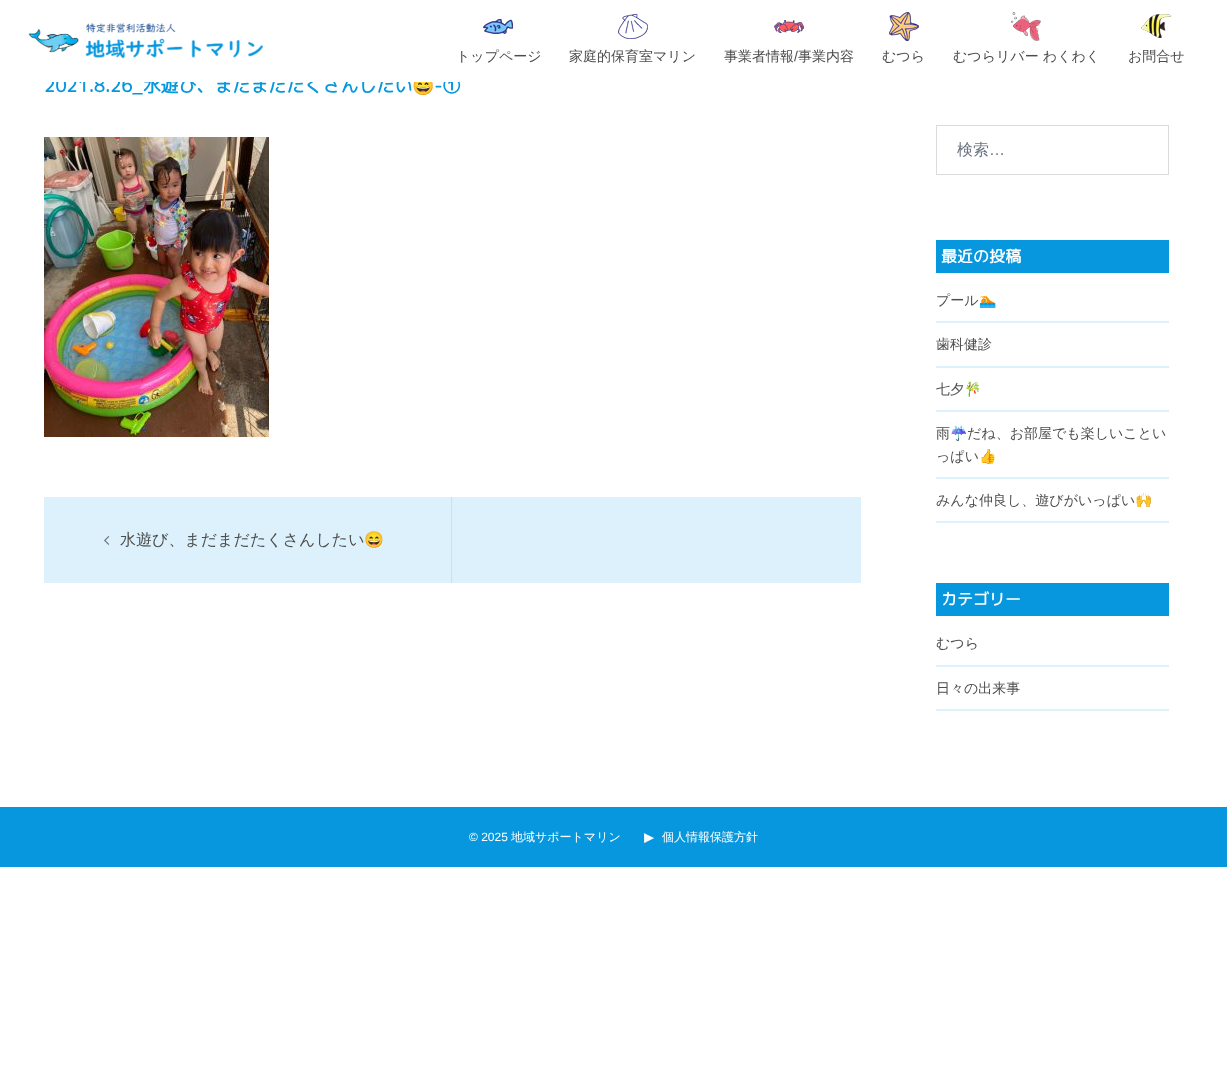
<!DOCTYPE html>
<meta charset="utf-8">
<style>body { margin: 0 } canvas { display: block }</style>
<canvas id="canvas" width="1227" height="1065"></canvas>
<img id="img1" src="images/1.png" hidden>
<img id="img2" src="images/2.png" hidden>
<img id="img3" src="images/3.png" hidden>
<img id="img4" src="images/4.png" hidden>
<img id="img5" src="images/5.png" hidden>
<img id="img6" src="images/6.png" hidden>
<img id="img7" src="images/7.png" hidden>
<img id="img8" src="images/8.png" hidden>
<img id="img9" src="images/9.png" hidden>
<img id="img10" src="images/10.png" hidden>
<script>
window.onload = function () {
    const canvas = document.getElementById('canvas');
    const context = canvas.getContext('2d');
    context.miterLimit = 4;
    context.fontKerning = 'normal';

    context.fillStyle = 'rgb(255, 255, 255)';
    context.fillRect(0, 0, 1227, 1065);
    context.drawImage(document.getElementById('img1'), 28, 23, 236, 36);
    context.drawImage(document.getElementById('img2'), 483, 19, 30, 15);
    context.drawImage(document.getElementById('img3'), 618, 14, 30, 25);
    context.drawImage(document.getElementById('img4'), 774, 20, 30, 13);
    context.drawImage(document.getElementById('img5'), 889, 12, 30, 29);
    context.drawImage(document.getElementById('img6'), 1011, 12, 30, 29);
    context.drawImage(document.getElementById('img7'), 1141, 14, 30, 24);
    context.drawImage(document.getElementById('img8'), 44, 137, 225, 300);
    context.fillStyle = 'rgb(220, 241, 251)';
    context.fillRect(44, 497, 817, 86);
    context.fillStyle = 'rgb(219, 219, 219)';
    context.fillRect(451, 497, 1, 86);
    context.drawImage(document.getElementById('img9'), 104, 536, 6, 9);
    context.strokeStyle = 'rgb(219, 219, 219)';
    context.strokeRect(936.5, 125.5, 232, 49);
    context.fillStyle = 'rgb(7, 151, 222)';
    context.fillRect(936, 240, 233, 33);
    context.fillStyle = 'rgb(220, 241, 251)';
    context.fillRect(936, 321, 233, 2);
    context.fillRect(936, 366, 233, 2);
    context.fillRect(936, 410, 233, 2);
    context.fillRect(936, 477, 233, 2);
    context.fillRect(936, 521, 233, 2);
    context.fillStyle = 'rgb(7, 151, 222)';
    context.fillRect(936, 583, 233, 33);
    context.fillStyle = 'rgb(220, 241, 251)';
    context.fillRect(936, 665, 233, 2);
    context.fillRect(936, 709, 233, 2);
    context.fillStyle = 'rgb(7, 151, 222)';
    context.fillRect(0, 807, 1227, 60);
    context.drawImage(document.getElementById('img10'), 644, 833, 10, 10);
    context.font = '500 14px WenQuanYi Zen Hei';
    context.fillStyle = 'rgb(77, 77, 77)';
    context.fillText('トップページ', 456, 61);
    context.fillText('家庭的保育室マリン', 569, 61);
    context.fillText('事業者情報', 724, 61);
    context.font = '14px Liberation Sans';
    context.fillText('/', 794, 61);
    context.font = '500 14px WenQuanYi Zen Hei';
    context.fillText('事業内容', 798, 61);
    context.fillText('むつら', 882, 61);
    context.fillText('むつらリバー わくわく', 953, 61);
    context.fillText('お問合せ', 1128, 61);
    context.font = 'bold 18px "Rounded Mplus 1c"';
    context.fillStyle = 'rgb(7, 151, 222)';
    context.fillText('2021.8.26_水遊び、まだまだたくさんしたい', 44, 92);
    context.font = 'bold 18px Noto Color Emoji';
    context.fillText('😄', 412, 92);
    context.font = 'bold 18px "Rounded Mplus 1c"';
    context.fillText('-①', 434, 92);
    context.fillStyle = 'rgb(255, 255, 255)';
    context.fillRect(45, 75, 414, 7);
    context.font = '500 16px WenQuanYi Zen Hei';
    context.fillStyle = 'rgb(77, 77, 77)';
    context.fillText('水遊び、まだまだたくさんしたい', 120, 545);
    context.font = '16px Noto Color Emoji';
    context.fillText('😄', 364, 545);
    context.font = '500 16px WenQuanYi Zen Hei';
    context.fillStyle = 'rgb(109, 118, 133)';
    context.fillText('検索', 957, 155);
    context.font = '16px Liberation Sans';
    context.fillText('…', 989, 155);
    context.font = 'bold 16px "Rounded Mplus 1c"';
    context.fillStyle = 'rgb(255, 255, 255)';
    context.fillText('最近の投稿', 941, 262);
    context.font = '500 14px WenQuanYi Zen Hei';
    context.fillStyle = 'rgb(77, 77, 77)';
    context.fillText('プール', 936, 305);
    context.font = '14px Noto Color Emoji';
    context.fillText('🏊', 979, 305);
    context.font = '500 14px WenQuanYi Zen Hei';
    context.fillText('歯科健診', 936, 349);
    context.fillText('七夕', 936, 394);
    context.font = '14px Noto Color Emoji';
    context.fillText('🎋', 964, 394);
    context.font = '500 14px WenQuanYi Zen Hei';
    context.fillText('雨', 936, 438);
    context.font = '14px Noto Color Emoji';
    context.fillText('☔', 950, 438);
    context.font = '500 14px WenQuanYi Zen Hei';
    context.fillText('だね、お部屋でも楽しいことい', 967, 438);
    context.fillText('っぱい', 936, 461);
    context.font = '14px Noto Color Emoji';
    context.fillText('👍', 979, 461);
    context.font = '500 14px WenQuanYi Zen Hei';
    context.fillText('みんな仲良し、遊びがいっぱい', 936, 505);
    context.font = '14px Noto Color Emoji';
    context.fillText('🙌', 1135, 505);
    context.font = 'bold 16px "Rounded Mplus 1c"';
    context.fillStyle = 'rgb(255, 255, 255)';
    context.fillText('カテゴリー', 941, 605);
    context.font = '500 14px WenQuanYi Zen Hei';
    context.fillStyle = 'rgb(77, 77, 77)';
    context.fillText('むつら', 936, 648);
    context.fillText('日々の出来事', 936, 693);
    context.font = '12px Liberation Sans';
    context.fillStyle = 'rgb(255, 255, 255)';
    context.fillText('© 2025', 469, 841);
    context.font = '500 12px WenQuanYi Zen Hei';
    context.fillText('地域サポートマリン', 511, 841);
    context.fillText('個人情報保護方針', 662, 841);
};
</script>
